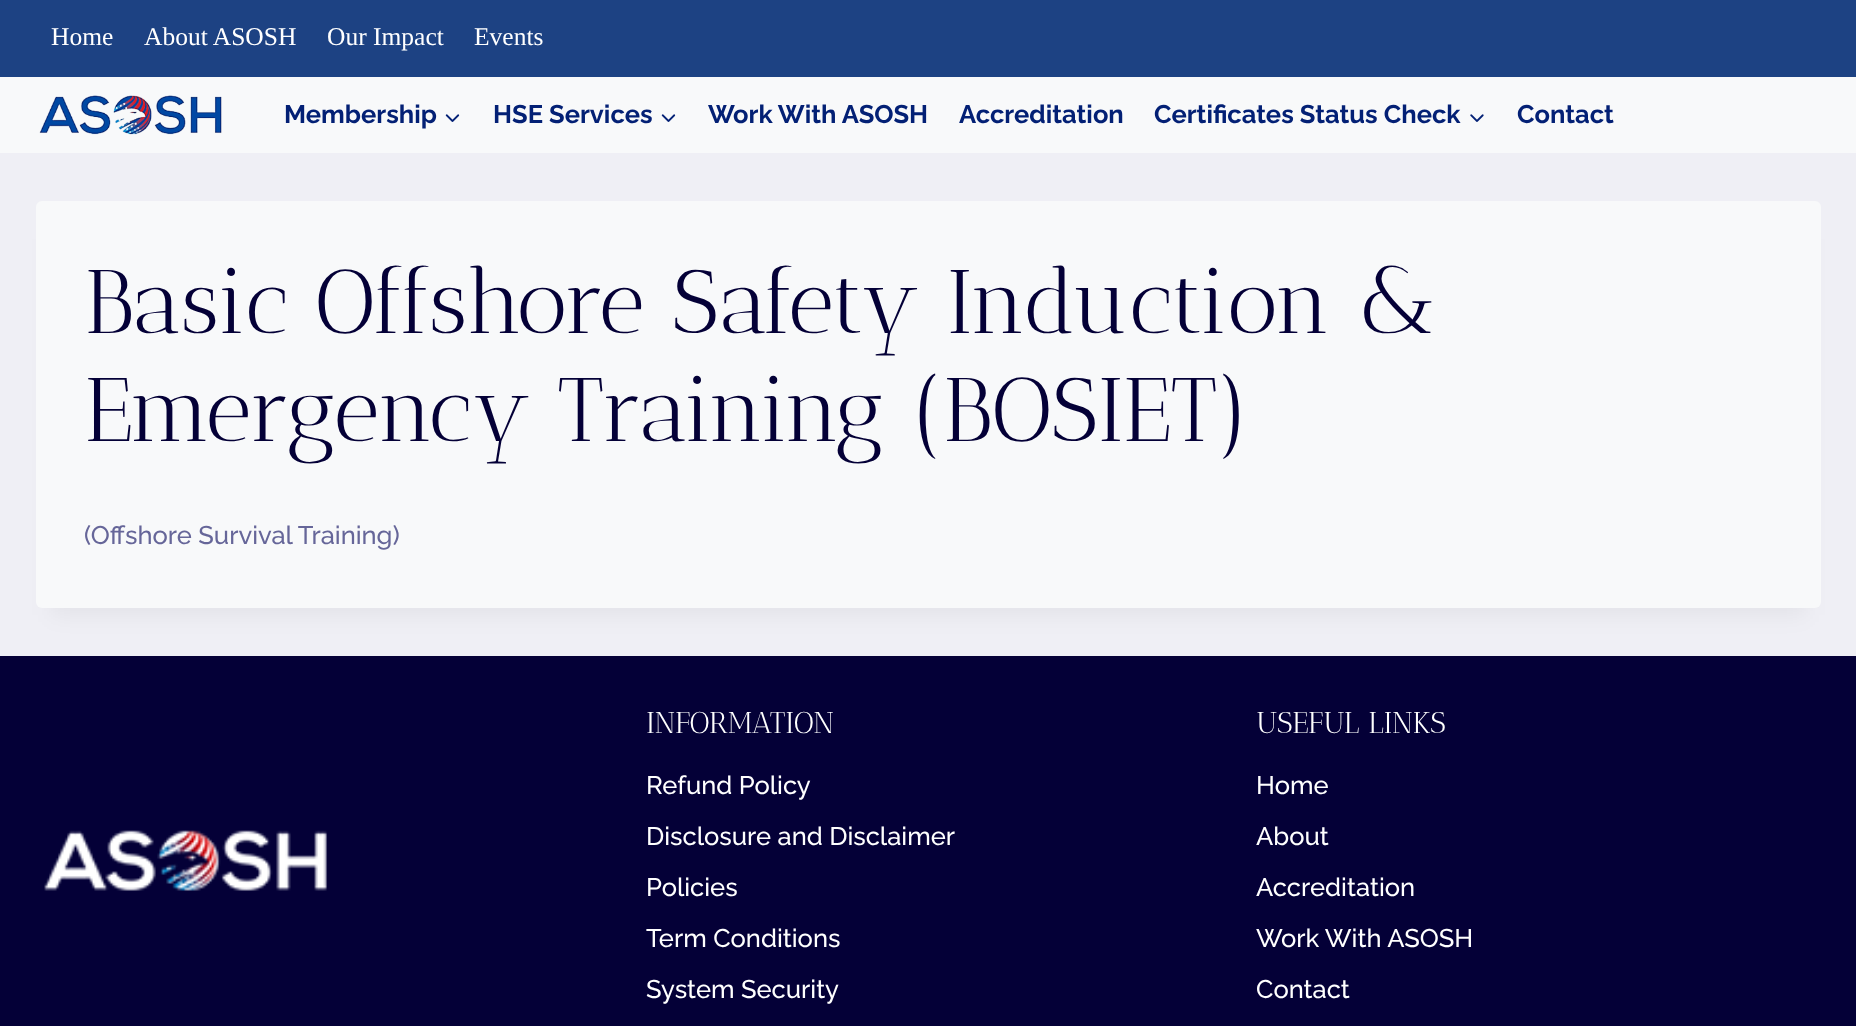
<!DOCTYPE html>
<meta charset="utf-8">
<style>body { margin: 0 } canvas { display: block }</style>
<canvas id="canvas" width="1856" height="1026"></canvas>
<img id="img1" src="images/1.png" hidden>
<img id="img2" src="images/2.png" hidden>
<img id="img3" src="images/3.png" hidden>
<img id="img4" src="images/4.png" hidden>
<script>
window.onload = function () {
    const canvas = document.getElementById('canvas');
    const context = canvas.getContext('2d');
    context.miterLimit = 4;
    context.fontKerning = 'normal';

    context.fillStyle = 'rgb(239, 239, 245)';
    context.fillRect(0, 0, 1856, 1026);
    context.fillStyle = 'rgb(29, 66, 131)';
    context.fillRect(0, 0, 1856, 77);
    context.fillStyle = 'rgb(248, 249, 250)';
    context.fillRect(0, 77, 1856, 76);
    context.drawImage(document.getElementById('img1'), 39, 95, 183, 40);
    context.drawImage(document.getElementById('img2'), 445, 114, 15, 8);
    context.drawImage(document.getElementById('img2'), 661, 114, 15, 8);
    context.drawImage(document.getElementById('img3'), 1470, 114, 14, 8);
    context.fillStyle = 'rgba(0, 0, 0, 0.05)';
    context.filter = 'blur(11px)';
    context.beginPath();
    context.rect(51, 239, 1755, 376);
    context.fill();
    context.filter = 'none';
    context.fillStyle = 'rgb(248, 249, 250)';
    context.beginPath();
    context.roundRect(36, 201, 1785, 407, 6);
    context.fill();
    context.fillStyle = 'rgb(4, 0, 55)';
    context.fillRect(0, 656, 1856, 370);
    context.drawImage(document.getElementById('img4'), 44, 830, 283, 61);
    context.font = '25.5px Liberation Serif';
    context.fillStyle = 'rgb(255, 255, 255)';
    context.fillText('Home', 51, 45);
    context.fillText('About ASOSH', 144, 45);
    context.fillText('Our Impact', 327, 45);
    context.fillText('Events', 474, 45);
    context.font = 'bold 25.5px Raleway';
    context.fillStyle = 'rgb(3, 32, 117)';
    context.fillText('Membership', 284, 123);
    context.fillText('HSE Services', 493, 123);
    context.fillText('Work With ASOSH', 708, 123);
    context.fillText('Accreditation', 959, 123);
    context.fillText('Certificates Status Check', 1154, 123);
    context.fillText('Contact', 1517, 123);
    context.font = '90px Antic Didone';
    context.fillStyle = 'rgb(4, 0, 55)';
    context.fillText('Basic Offshore Safety Induction &', 84, 333);
    context.fillText('Emergency Training (BOSIET)', 84, 441);
    context.font = '500 25.5px Raleway';
    context.fillStyle = 'rgb(102, 102, 153)';
    context.fillText('(Offshore Survival Training)', 84, 544);
    context.font = '30px Antic Didone';
    context.fillStyle = 'rgb(255, 255, 255)';
    context.fillText('INFORMATION', 646, 733);
    context.font = '500 25.5px Raleway';
    context.fillText('Refund Policy', 646, 794);
    context.fillText('Disclosure and Disclaimer', 646, 845);
    context.fillText('Policies', 646, 896);
    context.fillText('Term Conditions', 646, 947);
    context.fillText('System Security', 646, 998);
    context.font = '30px Antic Didone';
    context.fillText('USEFUL LINKS', 1256, 733);
    context.font = '500 25.5px Raleway';
    context.fillText('Home', 1256, 794);
    context.fillText('About', 1256, 845);
    context.fillText('Accreditation', 1256, 896);
    context.fillText('Work With ASOSH', 1256, 947);
    context.fillText('Contact', 1256, 998);
};
</script>
